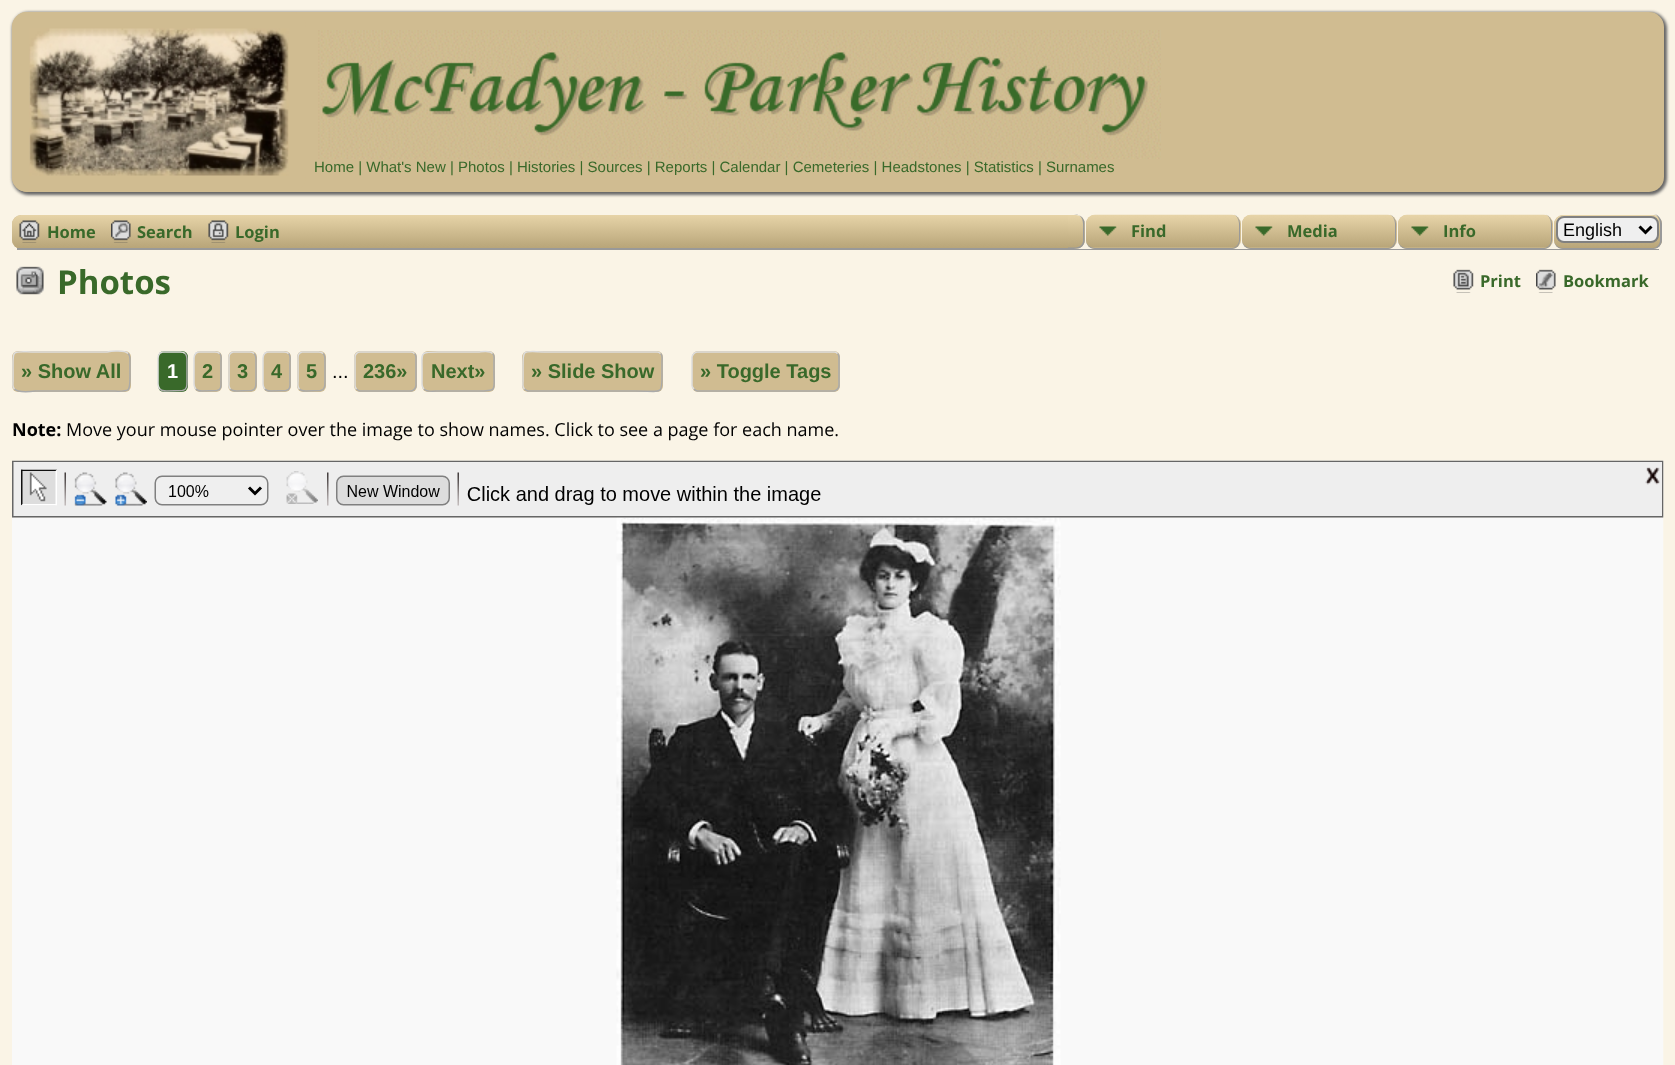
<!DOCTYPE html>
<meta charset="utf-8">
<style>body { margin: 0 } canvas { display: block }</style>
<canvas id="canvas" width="1675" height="1065"></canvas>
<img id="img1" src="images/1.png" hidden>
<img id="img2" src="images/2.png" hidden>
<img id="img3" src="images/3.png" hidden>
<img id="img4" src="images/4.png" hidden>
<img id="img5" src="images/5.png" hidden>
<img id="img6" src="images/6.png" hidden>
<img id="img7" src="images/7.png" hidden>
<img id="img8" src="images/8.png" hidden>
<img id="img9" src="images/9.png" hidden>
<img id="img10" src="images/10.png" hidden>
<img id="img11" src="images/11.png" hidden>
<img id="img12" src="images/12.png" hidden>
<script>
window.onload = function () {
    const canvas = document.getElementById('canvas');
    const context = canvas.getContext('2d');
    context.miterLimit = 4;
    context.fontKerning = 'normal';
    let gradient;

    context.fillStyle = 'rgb(250, 244, 230)';
    context.fillRect(0, 0, 1675, 1065);
    context.fillStyle = 'rgb(102, 102, 102)';
    context.filter = 'blur(1.5px)';
    context.beginPath();
    context.roundRect(12, 12, 1655, 183, 17);
    context.fill();
    context.filter = 'none';
    context.fillStyle = 'rgb(208, 188, 145)';
    context.beginPath();
    context.roundRect(12, 12, 1652, 180, 15);
    context.fill();
    context.beginPath();
    context.roundRect(12, 12, 294, 180, 15);
    context.fill();
    context.drawImage(document.getElementById('img1'), 29, 28, 260, 148);
    context.drawImage(document.getElementById('img2'), 318, 30, 843, 129);
    context.beginPath();
    context.roundRect(12, 215, 1652, 34, 9);
    context.fill();
    context.save();
    context.beginPath();
    context.roundRect(12, 215, 1652, 34, 9);
    context.clip();
    gradient = context.createLinearGradient(838, 214, 838, 248);
    gradient.addColorStop(0, 'rgb(232, 213, 169)');
    gradient.addColorStop(1, 'rgb(184, 165, 121)');
    context.fillStyle = gradient;
    context.beginPath();
    context.roundRect(12, 215, 1652, 33, [9, 9, 0, 0]);
    context.fill();
    context.restore();
    context.fillStyle = 'rgb(153, 153, 153)';
    context.fillRect(17, 248, 1642, 2);
    context.drawImage(document.getElementById('img3'), 19, 220, 21, 23);
    context.drawImage(document.getElementById('img4'), 111, 220, 20, 23);
    context.drawImage(document.getElementById('img5'), 208, 220, 21, 23);
    context.fillStyle = 'rgb(250, 244, 230)';
    context.fillRect(1076, 215, 588, 34);
    context.save();
    context.beginPath();
    context.roundRect(1068, 215, 17, 34, [0, 9, 9, 0]);
    context.clip();
    gradient = context.createLinearGradient(1076, 215, 1076, 248);
    gradient.addColorStop(0, 'rgb(232, 213, 169)');
    gradient.addColorStop(1, 'rgb(184, 165, 121)');
    context.fillStyle = gradient;
    context.fillRect(1068, 215, 17, 33);
    gradient = context.createLinearGradient(1076, 248, 1076, 281);
    gradient.addColorStop(0, 'rgb(232, 213, 169)');
    gradient.addColorStop(1, 'rgb(184, 165, 121)');
    context.fillStyle = gradient;
    context.fillRect(1068, 248, 17, 1);
    context.restore();
    context.fillStyle = 'rgb(153, 153, 153)';
    context.beginPath();
    context.moveTo(1068, 214.5);
    context.bezierCurveTo(1074.5, 214.5, 1082.5, 213.5, 1084.5, 221.5);
    context.lineTo(1084.5, 242);
    context.bezierCurveTo(1082.5, 250, 1074.5, 249, 1068, 249);
    context.closePath();
    context.moveTo(1068, 214.5);
    context.lineTo(1077, 214.5);
    context.bezierCurveTo(1084.5, 216.5, 1083, 226, 1083, 232);
    context.lineTo(1083, 241.5);
    context.bezierCurveTo(1081.5, 249, 1073.5, 247.5, 1068, 247.5);
    context.closePath();
    context.fill('evenodd');
    context.fillStyle = 'rgb(208, 188, 145)';
    context.beginPath();
    context.roundRect(1086, 215, 155, 34, 9);
    context.fill();
    context.drawImage(document.getElementById('img6'), 1086, 214, 153, 34);
    context.fillStyle = 'rgb(153, 153, 153)';
    context.beginPath();
    context.moveTo(1095, 214);
    context.lineTo(1232, 214);
    context.bezierCurveTo(1236, 214, 1240, 219, 1240, 224);
    context.lineTo(1240, 240);
    context.bezierCurveTo(1240, 245, 1236, 249, 1232, 249);
    context.lineTo(1095, 249);
    context.bezierCurveTo(1090, 249, 1086, 245, 1086, 240);
    context.lineTo(1086, 224);
    context.bezierCurveTo(1086, 219, 1090, 214, 1095, 214);
    context.closePath();
    context.moveTo(1095, 214);
    context.lineTo(1232, 214);
    context.bezierCurveTo(1236, 214, 1239, 219, 1239, 224);
    context.lineTo(1239, 240);
    context.bezierCurveTo(1239, 244, 1236, 248, 1232, 248);
    context.lineTo(1095, 248);
    context.bezierCurveTo(1090, 248, 1086, 244, 1086, 240);
    context.lineTo(1086, 224);
    context.bezierCurveTo(1086, 219, 1090, 214, 1095, 214);
    context.closePath();
    context.fill('evenodd');
    context.fillStyle = 'rgb(208, 188, 145)';
    context.beginPath();
    context.roundRect(1242, 215, 155, 34, 9);
    context.fill();
    context.drawImage(document.getElementById('img7'), 1242, 214, 153, 34);
    context.fillStyle = 'rgb(153, 153, 153)';
    context.beginPath();
    context.moveTo(1251, 214);
    context.lineTo(1388, 214);
    context.bezierCurveTo(1392, 214, 1396, 219, 1396, 224);
    context.lineTo(1396, 240);
    context.bezierCurveTo(1396, 245, 1392, 249, 1388, 249);
    context.lineTo(1251, 249);
    context.bezierCurveTo(1246, 249, 1242, 245, 1242, 240);
    context.lineTo(1242, 224);
    context.bezierCurveTo(1242, 219, 1246, 214, 1251, 214);
    context.closePath();
    context.moveTo(1251, 214);
    context.lineTo(1388, 214);
    context.bezierCurveTo(1392, 214, 1395, 219, 1395, 224);
    context.lineTo(1395, 240);
    context.bezierCurveTo(1395, 244, 1392, 248, 1388, 248);
    context.lineTo(1251, 248);
    context.bezierCurveTo(1246, 248, 1242, 244, 1242, 240);
    context.lineTo(1242, 224);
    context.bezierCurveTo(1242, 219, 1246, 214, 1251, 214);
    context.closePath();
    context.fill('evenodd');
    context.fillStyle = 'rgb(208, 188, 145)';
    context.beginPath();
    context.roundRect(1398, 215, 155, 34, 9);
    context.fill();
    context.drawImage(document.getElementById('img8'), 1398, 214, 153, 34);
    context.fillStyle = 'rgb(153, 153, 153)';
    context.beginPath();
    context.moveTo(1407, 214);
    context.lineTo(1544, 214);
    context.bezierCurveTo(1548, 214, 1552, 219, 1552, 224);
    context.lineTo(1552, 240);
    context.bezierCurveTo(1552, 245, 1548, 249, 1544, 249);
    context.lineTo(1407, 249);
    context.bezierCurveTo(1402, 249, 1398, 245, 1398, 240);
    context.lineTo(1398, 224);
    context.bezierCurveTo(1398, 219, 1402, 214, 1407, 214);
    context.closePath();
    context.moveTo(1407, 214);
    context.lineTo(1544, 214);
    context.bezierCurveTo(1548, 214, 1551, 219, 1551, 224);
    context.lineTo(1551, 240);
    context.bezierCurveTo(1551, 244, 1548, 248, 1544, 248);
    context.lineTo(1407, 248);
    context.bezierCurveTo(1402, 248, 1398, 244, 1398, 240);
    context.lineTo(1398, 224);
    context.bezierCurveTo(1398, 219, 1402, 214, 1407, 214);
    context.closePath();
    context.fill('evenodd');
    context.fillStyle = 'rgb(208, 188, 145)';
    context.beginPath();
    context.roundRect(1554, 215, 108, 34, 9);
    context.fill();
    context.save();
    context.beginPath();
    context.roundRect(1554, 215, 108, 34, 9);
    context.clip();
    gradient = context.createLinearGradient(1607, 215, 1607, 248);
    gradient.addColorStop(0, 'rgb(232, 213, 169)');
    gradient.addColorStop(1, 'rgb(184, 165, 121)');
    context.fillStyle = gradient;
    context.beginPath();
    context.roundRect(1554, 215, 108, 33, [9, 9, 0, 0]);
    context.fill();
    context.restore();
    context.fillStyle = 'rgb(153, 153, 153)';
    context.beginPath();
    context.moveTo(1563, 214);
    context.lineTo(1653, 214);
    context.bezierCurveTo(1658, 214, 1662, 219, 1662, 224);
    context.lineTo(1662, 240);
    context.bezierCurveTo(1662, 245, 1658, 249, 1653, 249);
    context.lineTo(1563, 249);
    context.bezierCurveTo(1558, 249, 1554, 245, 1554, 240);
    context.lineTo(1554, 224);
    context.bezierCurveTo(1554, 219, 1558, 214, 1563, 214);
    context.closePath();
    context.moveTo(1563, 214);
    context.lineTo(1653, 214);
    context.bezierCurveTo(1657, 214, 1660, 219, 1660, 224);
    context.lineTo(1660, 240);
    context.bezierCurveTo(1660, 244, 1657, 248, 1653, 248);
    context.lineTo(1563, 248);
    context.bezierCurveTo(1558, 248, 1554, 244, 1554, 240);
    context.lineTo(1554, 224);
    context.bezierCurveTo(1554, 219, 1558, 214, 1563, 214);
    context.closePath();
    context.fill('evenodd');
    context.fillStyle = 'rgb(239, 239, 239)';
    context.beginPath();
    context.roundRect(1557, 217, 101, 25, 7);
    context.fill();
    context.strokeStyle = 'rgb(128, 128, 128)';
    context.lineWidth = 2;
    context.stroke();
    context.beginPath();
    context.moveTo(1639.5, 226.5);
    context.lineTo(1645.5, 232.5);
    context.lineTo(1651.5, 226.5);
    context.strokeStyle = 'rgb(0, 0, 0)';
    context.lineWidth = 3;
    context.stroke();
    context.drawImage(document.getElementById('img9'), 16, 266, 28, 29);
    context.drawImage(document.getElementById('img10'), 1453, 269, 21, 24);
    context.drawImage(document.getElementById('img11'), 1536, 269, 20, 24);
    context.fillStyle = 'rgb(208, 188, 145)';
    context.beginPath();
    context.roundRect(12, 351, 119, 41, 6);
    context.fill();
    context.beginPath();
    context.moveTo(128, 353.5);
    context.bezierCurveTo(130.5, 355.5, 130, 359, 130, 362);
    context.lineTo(130, 371);
    context.bezierCurveTo(130, 394.5, 132, 391, 107, 391);
    context.lineTo(36, 391);
    context.bezierCurveTo(35.5, 391, 18.5, 393.5, 14.5, 389);
    context.strokeStyle = 'rgb(170, 170, 170)';
    context.lineWidth = 1.5;
    context.stroke();
    context.beginPath();
    context.moveTo(14.5, 389);
    context.bezierCurveTo(12, 387, 13, 383.5, 13, 381);
    context.lineTo(13, 371);
    context.bezierCurveTo(13, 348, 10.5, 352, 36, 352);
    context.lineTo(107, 352);
    context.bezierCurveTo(107, 352, 124, 349, 128, 353.5);
    context.strokeStyle = 'rgb(221, 221, 221)';
    context.stroke();
    context.fillStyle = 'rgb(57, 105, 42)';
    context.beginPath();
    context.roundRect(158, 351, 30, 41, 6);
    context.fill();
    context.beginPath();
    context.moveTo(185, 353.5);
    context.bezierCurveTo(187.5, 355.5, 187, 359, 187, 362);
    context.lineTo(187, 381);
    context.bezierCurveTo(187, 384.5, 187.5, 389.5, 182.5, 390.5);
    context.lineTo(166.5, 391);
    context.bezierCurveTo(164, 391, 161.5, 391, 160, 389);
    context.strokeStyle = 'rgb(170, 170, 170)';
    context.stroke();
    context.beginPath();
    context.moveTo(160, 389);
    context.bezierCurveTo(157.5, 387, 158, 383.5, 158, 381);
    context.lineTo(158, 362);
    context.bezierCurveTo(158, 358, 157.5, 353, 162.5, 352);
    context.lineTo(178.5, 352);
    context.bezierCurveTo(181, 352, 183.5, 351.5, 185, 353.5);
    context.strokeStyle = 'rgb(221, 221, 221)';
    context.stroke();
    context.fillStyle = 'rgb(208, 188, 145)';
    context.beginPath();
    context.roundRect(194, 351, 28, 41, 6);
    context.fill();
    context.beginPath();
    context.moveTo(219.5, 353.5);
    context.bezierCurveTo(222, 355.5, 221, 359, 221, 362);
    context.lineTo(221, 381);
    context.bezierCurveTo(221, 384.5, 222, 389.5, 217, 390.5);
    context.lineTo(202, 391);
    context.bezierCurveTo(200, 391, 197.5, 391, 196, 389);
    context.strokeStyle = 'rgb(170, 170, 170)';
    context.stroke();
    context.beginPath();
    context.moveTo(196, 389);
    context.bezierCurveTo(193.5, 387, 194, 383.5, 194, 381);
    context.lineTo(194, 362);
    context.bezierCurveTo(194, 358, 193.5, 353, 198.5, 352);
    context.lineTo(213, 352);
    context.bezierCurveTo(215.5, 352, 218, 351.5, 219.5, 353.5);
    context.strokeStyle = 'rgb(221, 221, 221)';
    context.stroke();
    context.beginPath();
    context.roundRect(228, 351, 29, 41, 6);
    context.fill();
    context.beginPath();
    context.moveTo(254, 353.5);
    context.bezierCurveTo(256.5, 355.5, 256, 359, 256, 362);
    context.lineTo(256, 381);
    context.bezierCurveTo(256, 384.5, 256.5, 389.5, 251.5, 390.5);
    context.lineTo(237, 391);
    context.bezierCurveTo(234.5, 391, 232, 391, 230.5, 389);
    context.strokeStyle = 'rgb(170, 170, 170)';
    context.stroke();
    context.beginPath();
    context.moveTo(230.5, 389);
    context.bezierCurveTo(228, 387, 229, 383.5, 229, 381);
    context.lineTo(229, 362);
    context.bezierCurveTo(229, 358, 228, 353, 233, 352);
    context.lineTo(248, 352);
    context.bezierCurveTo(250, 352, 252.5, 351.5, 254, 353.5);
    context.strokeStyle = 'rgb(221, 221, 221)';
    context.stroke();
    context.beginPath();
    context.roundRect(263, 351, 28, 41, 6);
    context.fill();
    context.beginPath();
    context.moveTo(288.5, 353.5);
    context.bezierCurveTo(291, 355.5, 290, 359, 290, 362);
    context.lineTo(290, 381);
    context.bezierCurveTo(290, 384.5, 291, 389.5, 286, 390.5);
    context.lineTo(271, 391);
    context.bezierCurveTo(269, 391, 266.5, 391, 265, 389);
    context.strokeStyle = 'rgb(170, 170, 170)';
    context.stroke();
    context.beginPath();
    context.moveTo(265, 389);
    context.bezierCurveTo(262.5, 387, 263, 383.5, 263, 381);
    context.lineTo(263, 362);
    context.bezierCurveTo(263, 358, 262.5, 353, 267.5, 352);
    context.lineTo(282, 352);
    context.bezierCurveTo(284.5, 352, 287, 351.5, 288.5, 353.5);
    context.strokeStyle = 'rgb(221, 221, 221)';
    context.stroke();
    context.beginPath();
    context.roundRect(297, 351, 29, 41, 6);
    context.fill();
    context.beginPath();
    context.moveTo(323, 353.5);
    context.bezierCurveTo(325.5, 355.5, 325, 359, 325, 362);
    context.lineTo(325, 381);
    context.bezierCurveTo(325, 384.5, 325.5, 389.5, 320.5, 390.5);
    context.lineTo(306, 391);
    context.bezierCurveTo(303.5, 391, 301, 391, 299.5, 389);
    context.strokeStyle = 'rgb(170, 170, 170)';
    context.stroke();
    context.beginPath();
    context.moveTo(299.5, 389);
    context.bezierCurveTo(297, 387, 298, 383.5, 298, 381);
    context.lineTo(298, 362);
    context.bezierCurveTo(298, 358, 297, 353, 302, 352);
    context.lineTo(317, 352);
    context.bezierCurveTo(319, 352, 321.5, 351.5, 323, 353.5);
    context.strokeStyle = 'rgb(221, 221, 221)';
    context.stroke();
    context.beginPath();
    context.roundRect(354, 351, 63, 41, 6);
    context.fill();
    context.beginPath();
    context.moveTo(414.5, 353.5);
    context.bezierCurveTo(415.5, 354.5, 416, 355.5, 416, 357);
    context.lineTo(416, 385.5);
    context.bezierCurveTo(416, 387, 415.5, 388, 414.5, 389);
    context.bezierCurveTo(413.5, 390, 412.5, 391, 411, 391);
    context.lineTo(360, 391);
    context.bezierCurveTo(358.5, 391, 357.5, 390, 356.5, 389);
    context.strokeStyle = 'rgb(170, 170, 170)';
    context.stroke();
    context.beginPath();
    context.moveTo(356.5, 389);
    context.bezierCurveTo(355.5, 388, 355, 387, 355, 385.5);
    context.lineTo(355, 357);
    context.bezierCurveTo(355, 355.5, 355.5, 354.5, 356.5, 353.5);
    context.bezierCurveTo(357.5, 352.5, 358.5, 352, 360, 352);
    context.lineTo(411, 352);
    context.bezierCurveTo(412.5, 352, 413.5, 352.5, 414.5, 353.5);
    context.strokeStyle = 'rgb(221, 221, 221)';
    context.stroke();
    context.beginPath();
    context.roundRect(422, 351, 73, 41, 6);
    context.fill();
    context.beginPath();
    context.moveTo(492.5, 353.5);
    context.bezierCurveTo(495, 355.5, 494, 359, 494, 362);
    context.lineTo(494, 371);
    context.bezierCurveTo(494, 390.5, 497.5, 391, 479, 391);
    context.lineTo(438, 391);
    context.bezierCurveTo(435.5, 391, 427, 392.5, 424, 389);
    context.strokeStyle = 'rgb(170, 170, 170)';
    context.stroke();
    context.beginPath();
    context.moveTo(424, 389);
    context.bezierCurveTo(421.5, 387, 422, 383.5, 422, 381);
    context.lineTo(422, 371);
    context.bezierCurveTo(422, 352, 419, 352, 438, 352);
    context.lineTo(479, 352);
    context.bezierCurveTo(481, 352, 489.5, 350, 492.5, 353.5);
    context.strokeStyle = 'rgb(221, 221, 221)';
    context.stroke();
    context.beginPath();
    context.roundRect(522, 351, 141, 41, 6);
    context.fill();
    context.beginPath();
    context.moveTo(660.5, 353.5);
    context.bezierCurveTo(663, 355.5, 662, 359, 662, 362);
    context.lineTo(662, 371);
    context.bezierCurveTo(662, 396, 664, 391, 635.5, 391);
    context.lineTo(528, 391);
    context.bezierCurveTo(526.5, 390.5, 525.5, 390, 524.5, 389);
    context.strokeStyle = 'rgb(170, 170, 170)';
    context.stroke();
    context.beginPath();
    context.moveTo(524.5, 389);
    context.bezierCurveTo(522, 387, 523, 383.5, 523, 381);
    context.lineTo(523, 371);
    context.bezierCurveTo(523, 346.5, 521, 352, 549.5, 352);
    context.lineTo(657, 352);
    context.bezierCurveTo(658.5, 352, 659.5, 352.5, 660.5, 353.5);
    context.strokeStyle = 'rgb(221, 221, 221)';
    context.stroke();
    context.beginPath();
    context.roundRect(692, 351, 148, 41, 6);
    context.fill();
    context.beginPath();
    context.moveTo(837.5, 353.5);
    context.bezierCurveTo(838.5, 354.5, 839, 355.5, 839, 357);
    context.lineTo(839, 385.5);
    context.bezierCurveTo(839, 387, 838.5, 388, 837.5, 389);
    context.bezierCurveTo(836.5, 390, 835.5, 391, 834, 391);
    context.lineTo(697.5, 391);
    context.bezierCurveTo(696, 391, 695, 390, 694, 389);
    context.strokeStyle = 'rgb(170, 170, 170)';
    context.stroke();
    context.beginPath();
    context.moveTo(694, 389);
    context.bezierCurveTo(693, 388, 692, 387, 692, 385.5);
    context.lineTo(692, 357);
    context.bezierCurveTo(692, 355.5, 693, 354.5, 694, 353.5);
    context.bezierCurveTo(695, 352.5, 696, 352, 697.5, 352);
    context.lineTo(834, 352);
    context.bezierCurveTo(835.5, 352, 836.5, 352.5, 837.5, 353.5);
    context.strokeStyle = 'rgb(221, 221, 221)';
    context.stroke();
    context.drawImage(document.getElementById('img12'), 12, 460, 1652, 605);
    context.font = '15px Liberation Sans';
    context.fillStyle = 'rgb(57, 105, 42)';
    context.fillText('Home | What\'s New | Photos | Histories | Sources | Reports | Calendar | Cemeteries | Headstones | Statistics | Surnames', 314, 172);
    context.font = 'bold 16.5px Open Sans';
    context.fillText('Home', 47, 238);
    context.fillText('Search', 137, 238);
    context.fillText('Login', 235, 238);
    context.fillText('Find', 1131, 237);
    context.fillText('Media', 1287, 237);
    context.fillText('Info', 1443, 237);
    context.font = '18px Liberation Sans';
    context.fillStyle = 'rgb(0, 0, 0)';
    context.fillText('English', 1563, 236);
    context.font = 'bold 33px Open Sans';
    context.fillStyle = 'rgb(57, 105, 42)';
    context.fillText('Photos', 57, 294);
    context.font = 'bold 16.5px Open Sans';
    context.fillText('Print', 1480, 287);
    context.fillText('Bookmark', 1563, 287);
    context.font = 'bold 20px Liberation Sans';
    context.fillText('» Show All', 21, 378);
    context.fillStyle = 'rgb(255, 255, 255)';
    context.fillText('1', 167, 378);
    context.fillStyle = 'rgb(57, 105, 42)';
    context.fillText('2', 202, 378);
    context.fillText('3', 237, 378);
    context.fillText('4', 271, 378);
    context.fillText('5', 306, 378);
    context.font = '20px Liberation Sans';
    context.fillStyle = 'rgb(0, 0, 0)';
    context.fillText('...', 332, 378);
    context.font = 'bold 20px Liberation Sans';
    context.fillStyle = 'rgb(57, 105, 42)';
    context.fillText('236»', 363, 378);
    context.fillText('Next»', 431, 378);
    context.fillText('» Slide Show', 531, 378);
    context.fillText('» Toggle Tags', 700, 378);
    context.font = 'bold 18px Open Sans';
    context.fillStyle = 'rgb(0, 0, 0)';
    context.fillText('Note:', 12, 436);
    context.font = '18px Open Sans';
    context.fillText('Move your mouse pointer over the image to show names. Click to see a page for each name.', 66, 436);
};
</script>
